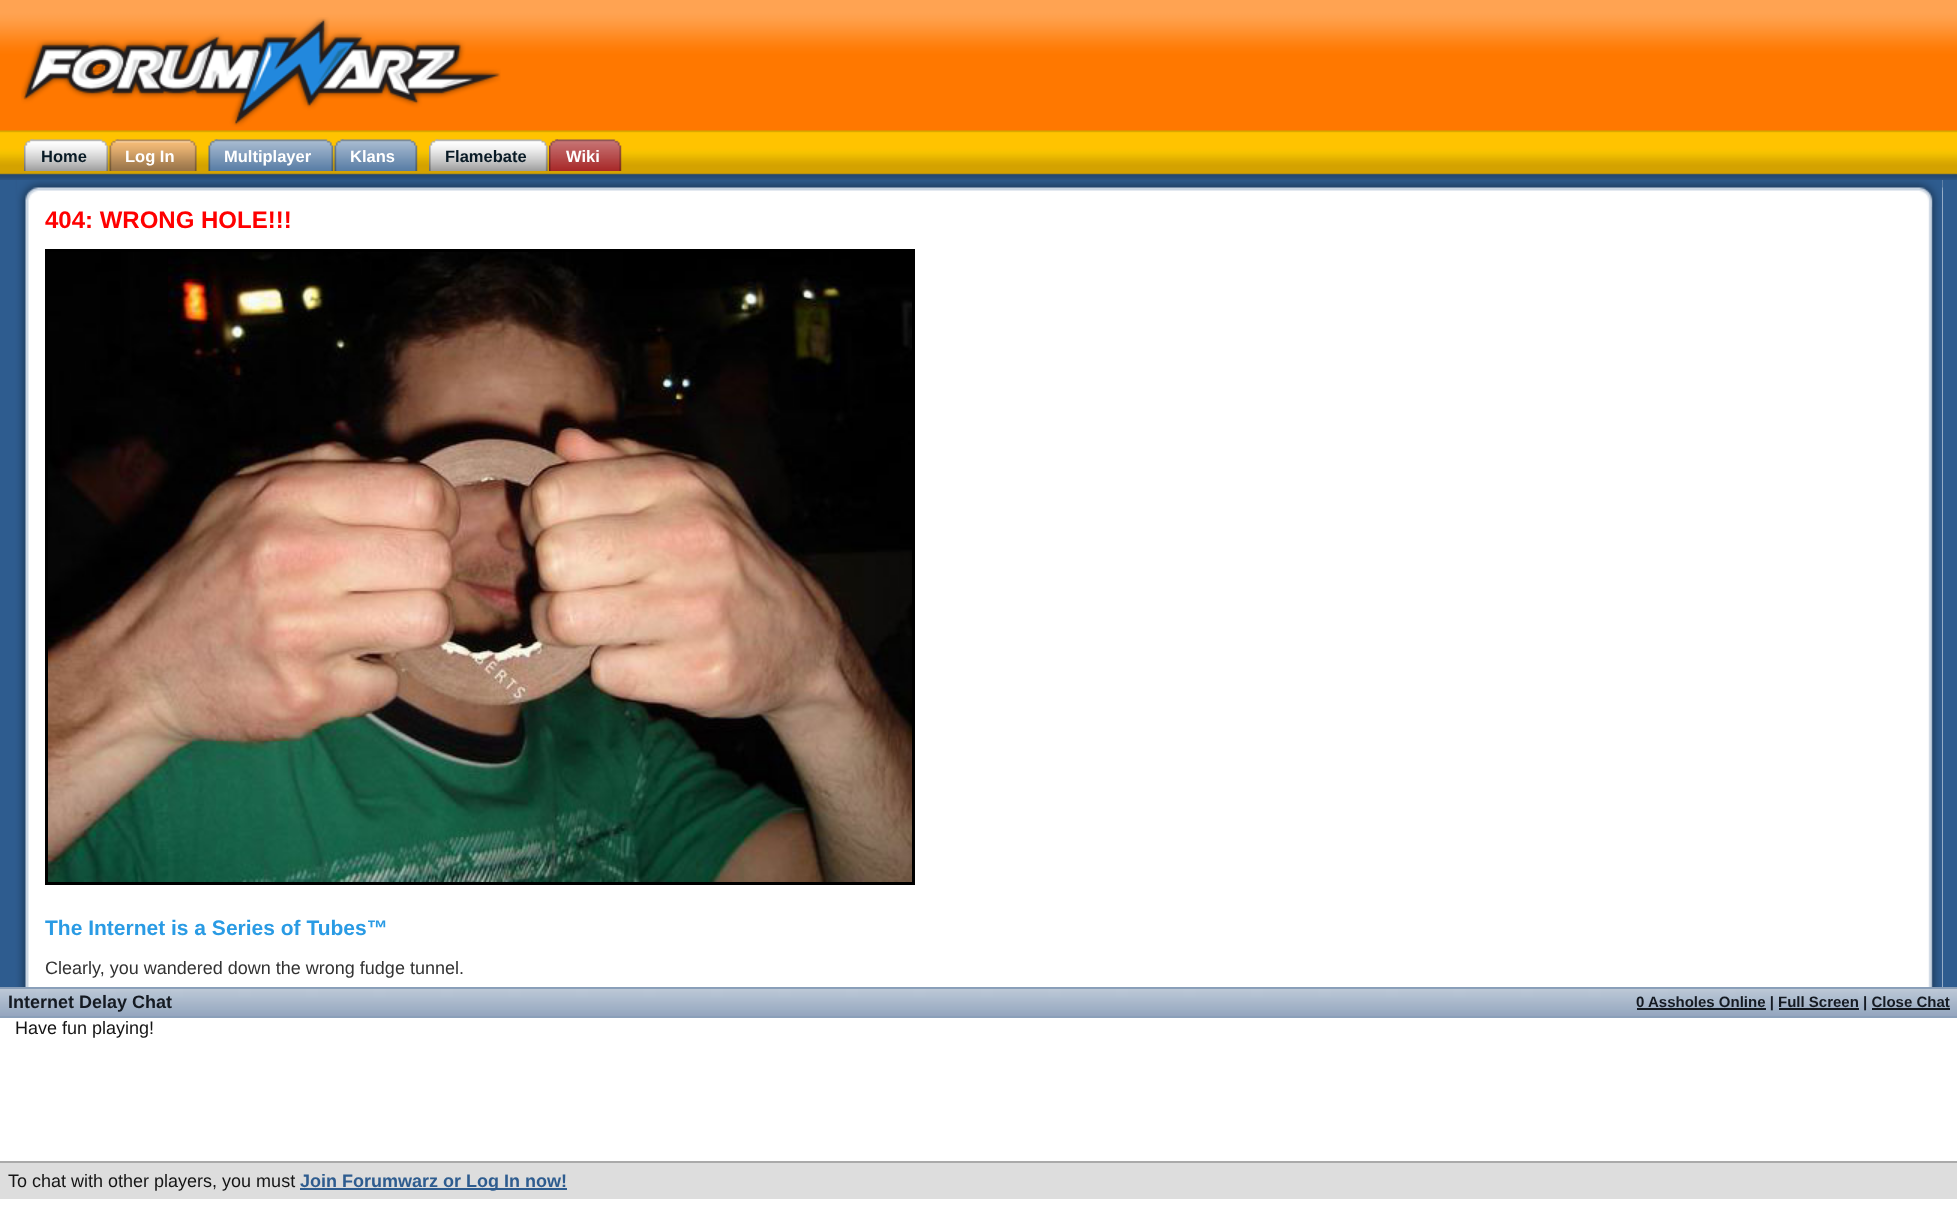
<!DOCTYPE html>
<meta charset="utf-8">
<style>body { margin: 0 } canvas { display: block }</style>
<canvas id="canvas" width="1957" height="1211"></canvas>
<img id="img1" src="images/1.png" hidden>
<img id="img2" src="images/2.png" hidden>
<img id="img3" src="images/3.png" hidden>
<img id="img4" src="images/4.png" hidden>
<img id="img5" src="images/5.png" hidden>
<img id="img6" src="images/6.png" hidden>
<img id="img7" src="images/7.png" hidden>
<img id="img8" src="images/8.png" hidden>
<img id="img9" src="images/9.png" hidden>
<img id="img10" src="images/10.png" hidden>
<img id="img11" src="images/11.png" hidden>
<img id="img12" src="images/12.png" hidden>
<img id="img13" src="images/13.png" hidden>
<img id="img14" src="images/14.png" hidden>
<img id="img15" src="images/15.png" hidden>
<img id="img16" src="images/16.png" hidden>
<img id="img17" src="images/17.png" hidden>
<img id="img18" src="images/18.png" hidden>
<img id="img19" src="images/19.png" hidden>
<img id="img20" src="images/20.png" hidden>
<script>
window.onload = function () {
    const canvas = document.getElementById('canvas');
    const context = canvas.getContext('2d');
    context.miterLimit = 4;
    context.fontKerning = 'normal';

    context.fillStyle = 'rgb(46, 92, 143)';
    context.fillRect(0, 0, 1957, 1211);
    context.drawImage(document.getElementById('img1'), 0, 0, 1957, 180);
    context.drawImage(document.getElementById('img2'), 21, 17, 480, 110);
    context.drawImage(document.getElementById('img3'), 24, 139, 9, 32);
    context.drawImage(document.getElementById('img4'), 31, 139, 78, 32);
    context.drawImage(document.getElementById('img5'), 109, 139, 10, 32);
    context.drawImage(document.getElementById('img6'), 117, 139, 80, 32);
    context.drawImage(document.getElementById('img7'), 208, 139, 10, 32);
    context.drawImage(document.getElementById('img8'), 216, 139, 118, 32);
    context.drawImage(document.getElementById('img9'), 334, 139, 10, 32);
    context.drawImage(document.getElementById('img10'), 342, 139, 76, 32);
    context.drawImage(document.getElementById('img11'), 429, 139, 9, 32);
    context.drawImage(document.getElementById('img12'), 436, 139, 112, 32);
    context.drawImage(document.getElementById('img13'), 549, 139, 9, 32);
    context.drawImage(document.getElementById('img14'), 556, 139, 66, 32);
    context.fillStyle = 'rgb(255, 255, 255)';
    context.fillRect(29, 180, 1914, 807);
    context.drawImage(document.getElementById('img15'), 15, 180, 14, 807);
    context.drawImage(document.getElementById('img16'), 17, 180, 1926, 20);
    context.drawImage(document.getElementById('img17'), 1919, 180, 24, 27);
    context.drawImage(document.getElementById('img18'), 1928, 207, 15, 780);
    context.strokeStyle = 'rgb(0, 0, 0)';
    context.lineWidth = 3;
    context.strokeRect(46.5, 250.5, 867, 633);
    context.drawImage(document.getElementById('img19'), 48, 252, 864, 630);
    context.fillRect(0, 1018, 1957, 193);
    context.drawImage(document.getElementById('img20'), 0, 989, 1957, 27);
    context.fillStyle = 'rgb(138, 159, 185)';
    context.fillRect(0, 987, 1957, 2);
    context.fillRect(0, 1016, 1957, 2);
    context.fillStyle = 'rgb(21, 26, 34)';
    context.fillRect(1637, 1008, 129, 2);
    context.fillRect(1779, 1008, 80, 2);
    context.fillRect(1872, 1008, 78, 2);
    context.fillStyle = 'rgb(221, 221, 221)';
    context.fillRect(0, 1163, 1957, 36);
    context.fillStyle = 'rgb(170, 170, 170)';
    context.fillRect(0, 1161, 1957, 2);
    context.fillStyle = 'rgb(46, 92, 143)';
    context.fillRect(300, 1188, 267, 2);
    context.font = 'bold 16.5px Liberation Sans';
    context.fillStyle = 'rgb(8, 26, 37)';
    context.fillText('Home', 41, 162);
    context.fillStyle = 'rgb(255, 255, 255)';
    context.fillText('Log In', 125, 162);
    context.fillText('Multiplayer', 224, 162);
    context.fillText('Klans', 350, 162);
    context.fillStyle = 'rgb(8, 26, 37)';
    context.fillText('Flamebate', 445, 162);
    context.fillStyle = 'rgb(255, 255, 255)';
    context.fillText('Wiki', 566, 162);
    context.font = 'bold 24px Liberation Sans';
    context.fillStyle = 'rgb(255, 0, 0)';
    context.fillText('404: WRONG HOLE!!!', 45, 228);
    context.font = 'bold 21px Liberation Sans';
    context.fillStyle = 'rgb(42, 155, 228)';
    context.fillText('The Internet is a Series of Tubes™', 45, 935);
    context.font = '18px Liberation Sans';
    context.fillStyle = 'rgb(51, 51, 51)';
    context.fillText('Clearly, you wandered down the wrong fudge tunnel.', 45, 974);
    context.font = 'bold 18px Liberation Sans';
    context.fillStyle = 'rgb(21, 26, 34)';
    context.fillText('Internet Delay Chat', 8, 1008);
    context.font = 'bold 15px Liberation Sans';
    context.fillText('0 Assholes Online | Full Screen | Close Chat', 1636, 1007);
    context.font = '18px Liberation Sans';
    context.fillStyle = 'rgb(21, 21, 21)';
    context.fillText('Have fun playing!', 15, 1034);
    context.fillText('To chat with other players, you must', 8, 1187);
    context.font = 'bold 18px Liberation Sans';
    context.fillStyle = 'rgb(46, 92, 143)';
    context.fillText('Join Forumwarz or Log In now!', 300, 1187);
};
</script>
